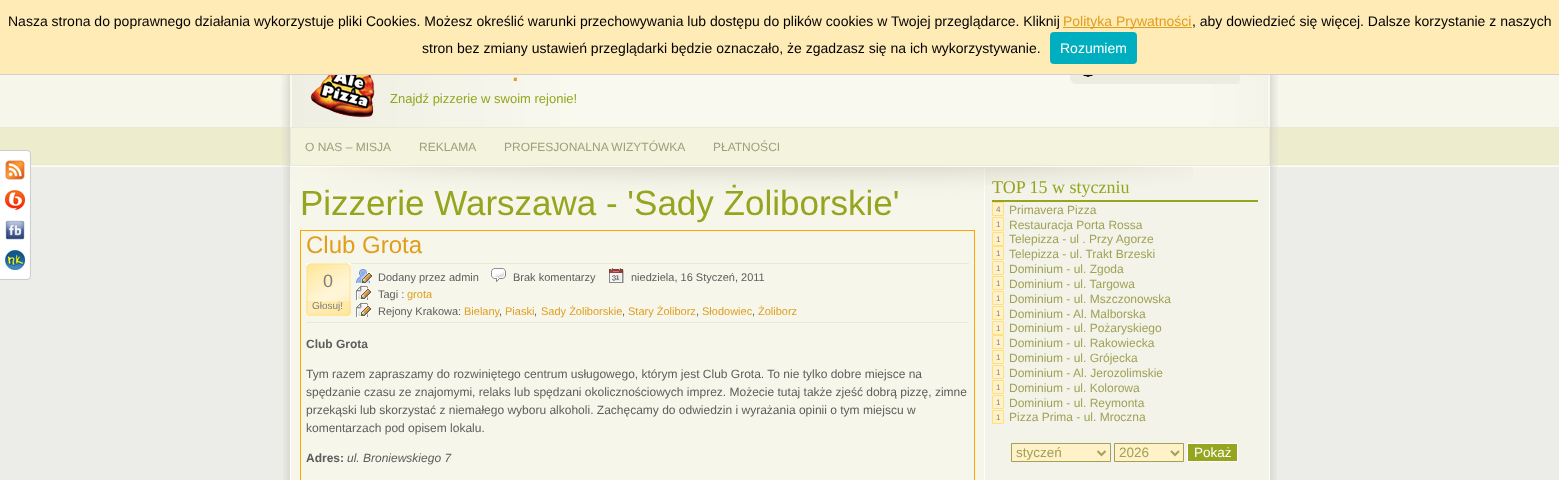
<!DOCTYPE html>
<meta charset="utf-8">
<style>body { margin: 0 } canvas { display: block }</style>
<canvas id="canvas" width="1559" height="480"></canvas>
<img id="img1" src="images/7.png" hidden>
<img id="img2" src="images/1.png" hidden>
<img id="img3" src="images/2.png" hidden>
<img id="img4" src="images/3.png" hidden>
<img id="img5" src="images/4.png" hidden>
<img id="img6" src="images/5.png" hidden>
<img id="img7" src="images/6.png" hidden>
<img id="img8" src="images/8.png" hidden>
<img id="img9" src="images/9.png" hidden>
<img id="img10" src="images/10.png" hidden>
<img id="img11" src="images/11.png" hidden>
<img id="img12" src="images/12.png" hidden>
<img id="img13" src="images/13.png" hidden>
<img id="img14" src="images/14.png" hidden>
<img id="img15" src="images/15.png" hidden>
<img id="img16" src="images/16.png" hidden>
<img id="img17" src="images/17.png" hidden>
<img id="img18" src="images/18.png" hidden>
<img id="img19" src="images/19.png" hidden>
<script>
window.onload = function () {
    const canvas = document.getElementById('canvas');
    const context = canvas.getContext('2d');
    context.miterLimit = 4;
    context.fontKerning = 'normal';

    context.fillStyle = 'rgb(236, 236, 232)';
    context.fillRect(0, 0, 1559, 480);
    context.fillStyle = 'rgb(255, 235, 182)';
    context.fillRect(0, 0, 1559, 74);
    context.fillStyle = 'rgb(211, 208, 208)';
    context.fillRect(0, 74, 1559, 1);
    context.fillStyle = 'rgb(225, 158, 30)';
    context.fillRect(1063, 27, 129, 1);
    context.fillStyle = 'rgb(0, 175, 191)';
    context.beginPath();
    context.roundRect(1050, 32, 87, 32, 4);
    context.fill();
    context.drawImage(document.getElementById('img1'), 0, 75, 1559, 92);
    context.drawImage(document.getElementById('img2'), 0, 150, 31, 120);
    context.drawImage(document.getElementById('img3'), 0, 270, 31, 10);
    context.drawImage(document.getElementById('img4'), 5, 160, 20, 20);
    context.drawImage(document.getElementById('img5'), 5, 190, 20, 20);
    context.drawImage(document.getElementById('img6'), 5, 220, 20, 20);
    context.drawImage(document.getElementById('img7'), 5, 250, 20, 20);
    context.drawImage(document.getElementById('img8'), 281, 75, 997, 92);
    context.drawImage(document.getElementById('img9'), 290, 75, 980, 52);
    context.fillStyle = 'rgb(255, 255, 255)';
    context.fillRect(290, 166, 980, 1);
    context.drawImage(document.getElementById('img10'), 310, 75, 65, 43);
    context.drawImage(document.getElementById('img11'), 1070, 75, 170, 9);
    context.fillStyle = 'rgb(243, 243, 222)';
    context.beginPath();
    context.rect(290.5, 127.5, 979, 38);
    context.fill();
    context.strokeStyle = 'rgb(234, 234, 211)';
    context.stroke();
    context.drawImage(document.getElementById('img12'), 283, 167, 994, 313);
    context.drawImage(document.getElementById('img13'), 290, 167, 695, 38);
    context.strokeStyle = 'rgb(255, 165, 0)';
    context.strokeRect(300.5, 230.5, 674, 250);
    context.drawImage(document.getElementById('img14'), 306, 263, 45, 53);
    context.fillStyle = 'rgba(255, 225, 125, 0.4)';
    context.fillRect(306, 301, 45, 15);
    context.fillStyle = 'rgb(233, 233, 212)';
    context.fillRect(351, 263, 618, 1);
    context.fillRect(306, 322, 663, 1);
    context.drawImage(document.getElementById('img15'), 356, 269, 16, 14);
    context.drawImage(document.getElementById('img16'), 491, 268, 15, 14);
    context.drawImage(document.getElementById('img17'), 609, 268, 15, 15);
    context.drawImage(document.getElementById('img18'), 356, 286, 15, 14);
    context.drawImage(document.getElementById('img18'), 356, 303, 15, 14);
    context.drawImage(document.getElementById('img19'), 985, 167, 208, 18);
    context.fillStyle = 'rgb(149, 165, 31)';
    context.fillRect(992, 200, 266, 2);
    context.fillStyle = 'rgb(255, 242, 201)';
    context.beginPath();
    context.rect(992.5, 202.5, 11, 13);
    context.fill();
    context.strokeStyle = 'rgb(255, 224, 125)';
    context.stroke();
    context.beginPath();
    context.rect(992.5, 217.5, 11, 13);
    context.fill();
    context.stroke();
    context.beginPath();
    context.rect(992.5, 232.5, 11, 13);
    context.fill();
    context.stroke();
    context.beginPath();
    context.rect(992.5, 246.5, 11, 13);
    context.fill();
    context.stroke();
    context.beginPath();
    context.rect(992.5, 261.5, 11, 13);
    context.fill();
    context.stroke();
    context.beginPath();
    context.rect(992.5, 276.5, 11, 13);
    context.fill();
    context.stroke();
    context.beginPath();
    context.rect(992.5, 291.5, 11, 13);
    context.fill();
    context.stroke();
    context.beginPath();
    context.rect(992.5, 306.5, 11, 13);
    context.fill();
    context.stroke();
    context.beginPath();
    context.rect(992.5, 321.5, 11, 13);
    context.fill();
    context.stroke();
    context.beginPath();
    context.rect(992.5, 335.5, 11, 13);
    context.fill();
    context.stroke();
    context.beginPath();
    context.rect(992.5, 350.5, 11, 13);
    context.fill();
    context.stroke();
    context.beginPath();
    context.rect(992.5, 365.5, 11, 13);
    context.fill();
    context.stroke();
    context.beginPath();
    context.rect(992.5, 380.5, 11, 13);
    context.fill();
    context.stroke();
    context.beginPath();
    context.rect(992.5, 395.5, 11, 13);
    context.fill();
    context.stroke();
    context.beginPath();
    context.rect(992.5, 410.5, 11, 13);
    context.fill();
    context.stroke();
    context.beginPath();
    context.rect(1011.5, 443.5, 99, 18);
    context.fill();
    context.strokeStyle = 'rgb(161, 161, 87)';
    context.stroke();
    context.beginPath();
    context.moveTo(1097.5, 451);
    context.lineTo(1101.5, 455);
    context.lineTo(1105.5, 451);
    context.lineWidth = 2;
    context.stroke();
    context.beginPath();
    context.rect(1114.5, 443.5, 69, 18);
    context.fill();
    context.lineWidth = 1;
    context.stroke();
    context.beginPath();
    context.moveTo(1171, 451);
    context.lineTo(1175, 455);
    context.lineTo(1179, 451);
    context.lineWidth = 2;
    context.stroke();
    context.fillStyle = 'rgb(149, 165, 31)';
    context.beginPath();
    context.rect(1187.5, 443.5, 50, 18);
    context.fill();
    context.strokeStyle = 'rgb(255, 255, 255)';
    context.lineWidth = 1;
    context.stroke();
    context.font = '14px Liberation Sans';
    context.fillStyle = 'rgb(0, 0, 0)';
    context.fillText('Nasza strona do poprawnego działania wykorzystuje pliki Cookies. Możesz określić warunki przechowywania lub dostępu do plików cookies w Twojej przeglądarce. Kliknij', 8, 26);
    context.fillStyle = 'rgb(225, 158, 30)';
    context.fillText('Polityka Prywatności', 1063, 26);
    context.fillStyle = 'rgb(0, 0, 0)';
    context.fillText(', aby dowiedzieć się więcej. Dalsze korzystanie z naszych', 1192, 26);
    context.fillText('stron bez zmiany ustawień przeglądarki będzie oznaczało, że zgadzasz się na ich wykorzystywanie.', 422, 53);
    context.fillStyle = 'rgb(255, 255, 255)';
    context.fillText('Rozumiem', 1060, 53);
    context.font = '31px Liberation Sans';
    context.fillStyle = 'rgb(225, 158, 30)';
    context.fillText('.', 511, 81);
    context.font = '13px Liberation Sans';
    context.fillStyle = 'rgb(149, 165, 31)';
    context.fillText('Znajdź pizzerie w swoim rejonie!', 390, 103);
    context.font = '12px Liberation Sans';
    context.fillStyle = 'rgb(156, 161, 122)';
    context.fillText('O NAS – MISJA', 305, 151);
    context.fillText('REKLAMA', 419, 151);
    context.fillText('PROFESJONALNA WIZYTÓWKA', 504, 151);
    context.fillText('PŁATNOŚCI', 713, 151);
    context.font = '35px Liberation Sans';
    context.fillStyle = 'rgb(149, 165, 31)';
    context.fillText('Pizzerie Warszawa - \'Sady Żoliborskie\'', 300, 215);
    context.font = '24px Liberation Sans';
    context.fillStyle = 'rgb(225, 158, 30)';
    context.fillText('Club Grota', 306, 253);
    context.font = '18px Liberation Sans';
    context.fillStyle = 'rgb(127, 127, 127)';
    context.fillText('0', 323, 287);
    context.font = '10px Liberation Sans';
    context.fillText('Głosuj!', 312, 309);
    context.font = '11px Liberation Sans';
    context.fillStyle = 'rgb(93, 93, 93)';
    context.fillText('Dodany przez admin', 378, 281);
    context.fillText('Brak komentarzy', 513, 281);
    context.fillText('niedziela, 16 Styczeń, 2011', 631, 281);
    context.fillText('Tagi :', 378, 298);
    context.fillStyle = 'rgb(225, 158, 30)';
    context.fillText('grota', 407, 298);
    context.fillStyle = 'rgb(93, 93, 93)';
    context.fillText('Rejony Krakowa:', 378, 315);
    context.fillStyle = 'rgb(225, 158, 30)';
    context.fillText('Bielany', 464, 315);
    context.fillStyle = 'rgb(93, 93, 93)';
    context.fillText(',', 499, 315);
    context.fillStyle = 'rgb(225, 158, 30)';
    context.fillText('Piaski', 505, 315);
    context.fillStyle = 'rgb(93, 93, 93)';
    context.fillText(',', 534, 315);
    context.fillStyle = 'rgb(225, 158, 30)';
    context.fillText('Sady Żoliborskie', 541, 315);
    context.fillStyle = 'rgb(93, 93, 93)';
    context.fillText(',', 622, 315);
    context.fillStyle = 'rgb(225, 158, 30)';
    context.fillText('Stary Żoliborz', 628, 315);
    context.fillStyle = 'rgb(93, 93, 93)';
    context.fillText(',', 696, 315);
    context.fillStyle = 'rgb(225, 158, 30)';
    context.fillText('Słodowiec', 702, 315);
    context.fillStyle = 'rgb(93, 93, 93)';
    context.fillText(',', 752, 315);
    context.fillStyle = 'rgb(225, 158, 30)';
    context.fillText('Żoliborz', 758, 315);
    context.font = 'bold 12px Liberation Sans';
    context.fillStyle = 'rgb(93, 93, 93)';
    context.fillText('Club Grota', 306, 348);
    context.font = '12px Liberation Sans';
    context.fillText('Tym razem zapraszamy do rozwiniętego centrum usługowego, którym jest Club Grota. To nie tylko dobre miejsce na', 306, 378);
    context.fillText('spędzanie czasu ze znajomymi, relaks lub spędzani okolicznościowych imprez. Możecie tutaj także zjeść dobrą pizzę, zimne', 306, 396);
    context.fillText('przekąski lub skorzystać z niemałego wyboru alkoholi. Zachęcamy do odwiedzin i wyrażania opinii o tym miejscu w', 306, 414);
    context.fillText('komentarzach pod opisem lokalu.', 306, 432);
    context.font = 'bold 12px Liberation Sans';
    context.fillText('Adres:', 306, 462);
    context.font = 'italic 12px Liberation Sans';
    context.fillText('ul. Broniewskiego 7', 347, 462);
    context.font = '18px Liberation Serif';
    context.fillStyle = 'rgb(149, 165, 31)';
    context.fillText('TOP 15 w styczniu', 992, 193);
    context.font = '8px Liberation Sans';
    context.fillStyle = 'rgb(127, 127, 127)';
    context.fillText('4', 996, 212);
    context.font = '12px Liberation Sans';
    context.fillStyle = 'rgb(161, 161, 87)';
    context.fillText('Primavera Pizza', 1009, 214);
    context.font = '8px Liberation Sans';
    context.fillStyle = 'rgb(127, 127, 127)';
    context.fillText('1', 996, 227);
    context.font = '12px Liberation Sans';
    context.fillStyle = 'rgb(161, 161, 87)';
    context.fillText('Restauracja Porta Rossa', 1009, 229);
    context.font = '8px Liberation Sans';
    context.fillStyle = 'rgb(127, 127, 127)';
    context.fillText('1', 996, 242);
    context.font = '12px Liberation Sans';
    context.fillStyle = 'rgb(161, 161, 87)';
    context.fillText('Telepizza - ul . Przy Agorze', 1009, 243);
    context.font = '8px Liberation Sans';
    context.fillStyle = 'rgb(127, 127, 127)';
    context.fillText('1', 996, 256);
    context.font = '12px Liberation Sans';
    context.fillStyle = 'rgb(161, 161, 87)';
    context.fillText('Telepizza - ul. Trakt Brzeski', 1009, 258);
    context.font = '8px Liberation Sans';
    context.fillStyle = 'rgb(127, 127, 127)';
    context.fillText('1', 996, 271);
    context.font = '12px Liberation Sans';
    context.fillStyle = 'rgb(161, 161, 87)';
    context.fillText('Dominium - ul. Zgoda', 1009, 273);
    context.font = '8px Liberation Sans';
    context.fillStyle = 'rgb(127, 127, 127)';
    context.fillText('1', 996, 286);
    context.font = '12px Liberation Sans';
    context.fillStyle = 'rgb(161, 161, 87)';
    context.fillText('Dominium - ul. Targowa', 1009, 288);
    context.font = '8px Liberation Sans';
    context.fillStyle = 'rgb(127, 127, 127)';
    context.fillText('1', 996, 301);
    context.font = '12px Liberation Sans';
    context.fillStyle = 'rgb(161, 161, 87)';
    context.fillText('Dominium - ul. Mszczonowska', 1009, 303);
    context.font = '8px Liberation Sans';
    context.fillStyle = 'rgb(127, 127, 127)';
    context.fillText('1', 996, 316);
    context.font = '12px Liberation Sans';
    context.fillStyle = 'rgb(161, 161, 87)';
    context.fillText('Dominium - Al. Malborska', 1009, 318);
    context.font = '8px Liberation Sans';
    context.fillStyle = 'rgb(127, 127, 127)';
    context.fillText('1', 996, 331);
    context.font = '12px Liberation Sans';
    context.fillStyle = 'rgb(161, 161, 87)';
    context.fillText('Dominium - ul. Pożaryskiego', 1009, 332);
    context.font = '8px Liberation Sans';
    context.fillStyle = 'rgb(127, 127, 127)';
    context.fillText('1', 996, 345);
    context.font = '12px Liberation Sans';
    context.fillStyle = 'rgb(161, 161, 87)';
    context.fillText('Dominium - ul. Rakowiecka', 1009, 347);
    context.font = '8px Liberation Sans';
    context.fillStyle = 'rgb(127, 127, 127)';
    context.fillText('1', 996, 360);
    context.font = '12px Liberation Sans';
    context.fillStyle = 'rgb(161, 161, 87)';
    context.fillText('Dominium - ul. Grójecka', 1009, 362);
    context.font = '8px Liberation Sans';
    context.fillStyle = 'rgb(127, 127, 127)';
    context.fillText('1', 996, 375);
    context.font = '12px Liberation Sans';
    context.fillStyle = 'rgb(161, 161, 87)';
    context.fillText('Dominium - Al. Jerozolimskie', 1009, 377);
    context.font = '8px Liberation Sans';
    context.fillStyle = 'rgb(127, 127, 127)';
    context.fillText('1', 996, 390);
    context.font = '12px Liberation Sans';
    context.fillStyle = 'rgb(161, 161, 87)';
    context.fillText('Dominium - ul. Kolorowa', 1009, 392);
    context.font = '8px Liberation Sans';
    context.fillStyle = 'rgb(127, 127, 127)';
    context.fillText('1', 996, 405);
    context.font = '12px Liberation Sans';
    context.fillStyle = 'rgb(161, 161, 87)';
    context.fillText('Dominium - ul. Reymonta', 1009, 407);
    context.font = '8px Liberation Sans';
    context.fillStyle = 'rgb(127, 127, 127)';
    context.fillText('1', 996, 420);
    context.font = '12px Liberation Sans';
    context.fillStyle = 'rgb(161, 161, 87)';
    context.fillText('Pizza Prima - ul. Mroczna', 1009, 421);
    context.font = '13.5px Liberation Sans';
    context.fillText('styczeń', 1016, 457);
    context.fillText('2026', 1119, 457);
    context.fillStyle = 'rgb(255, 255, 255)';
    context.fillText('Pokaż', 1194, 457);
};
</script>
